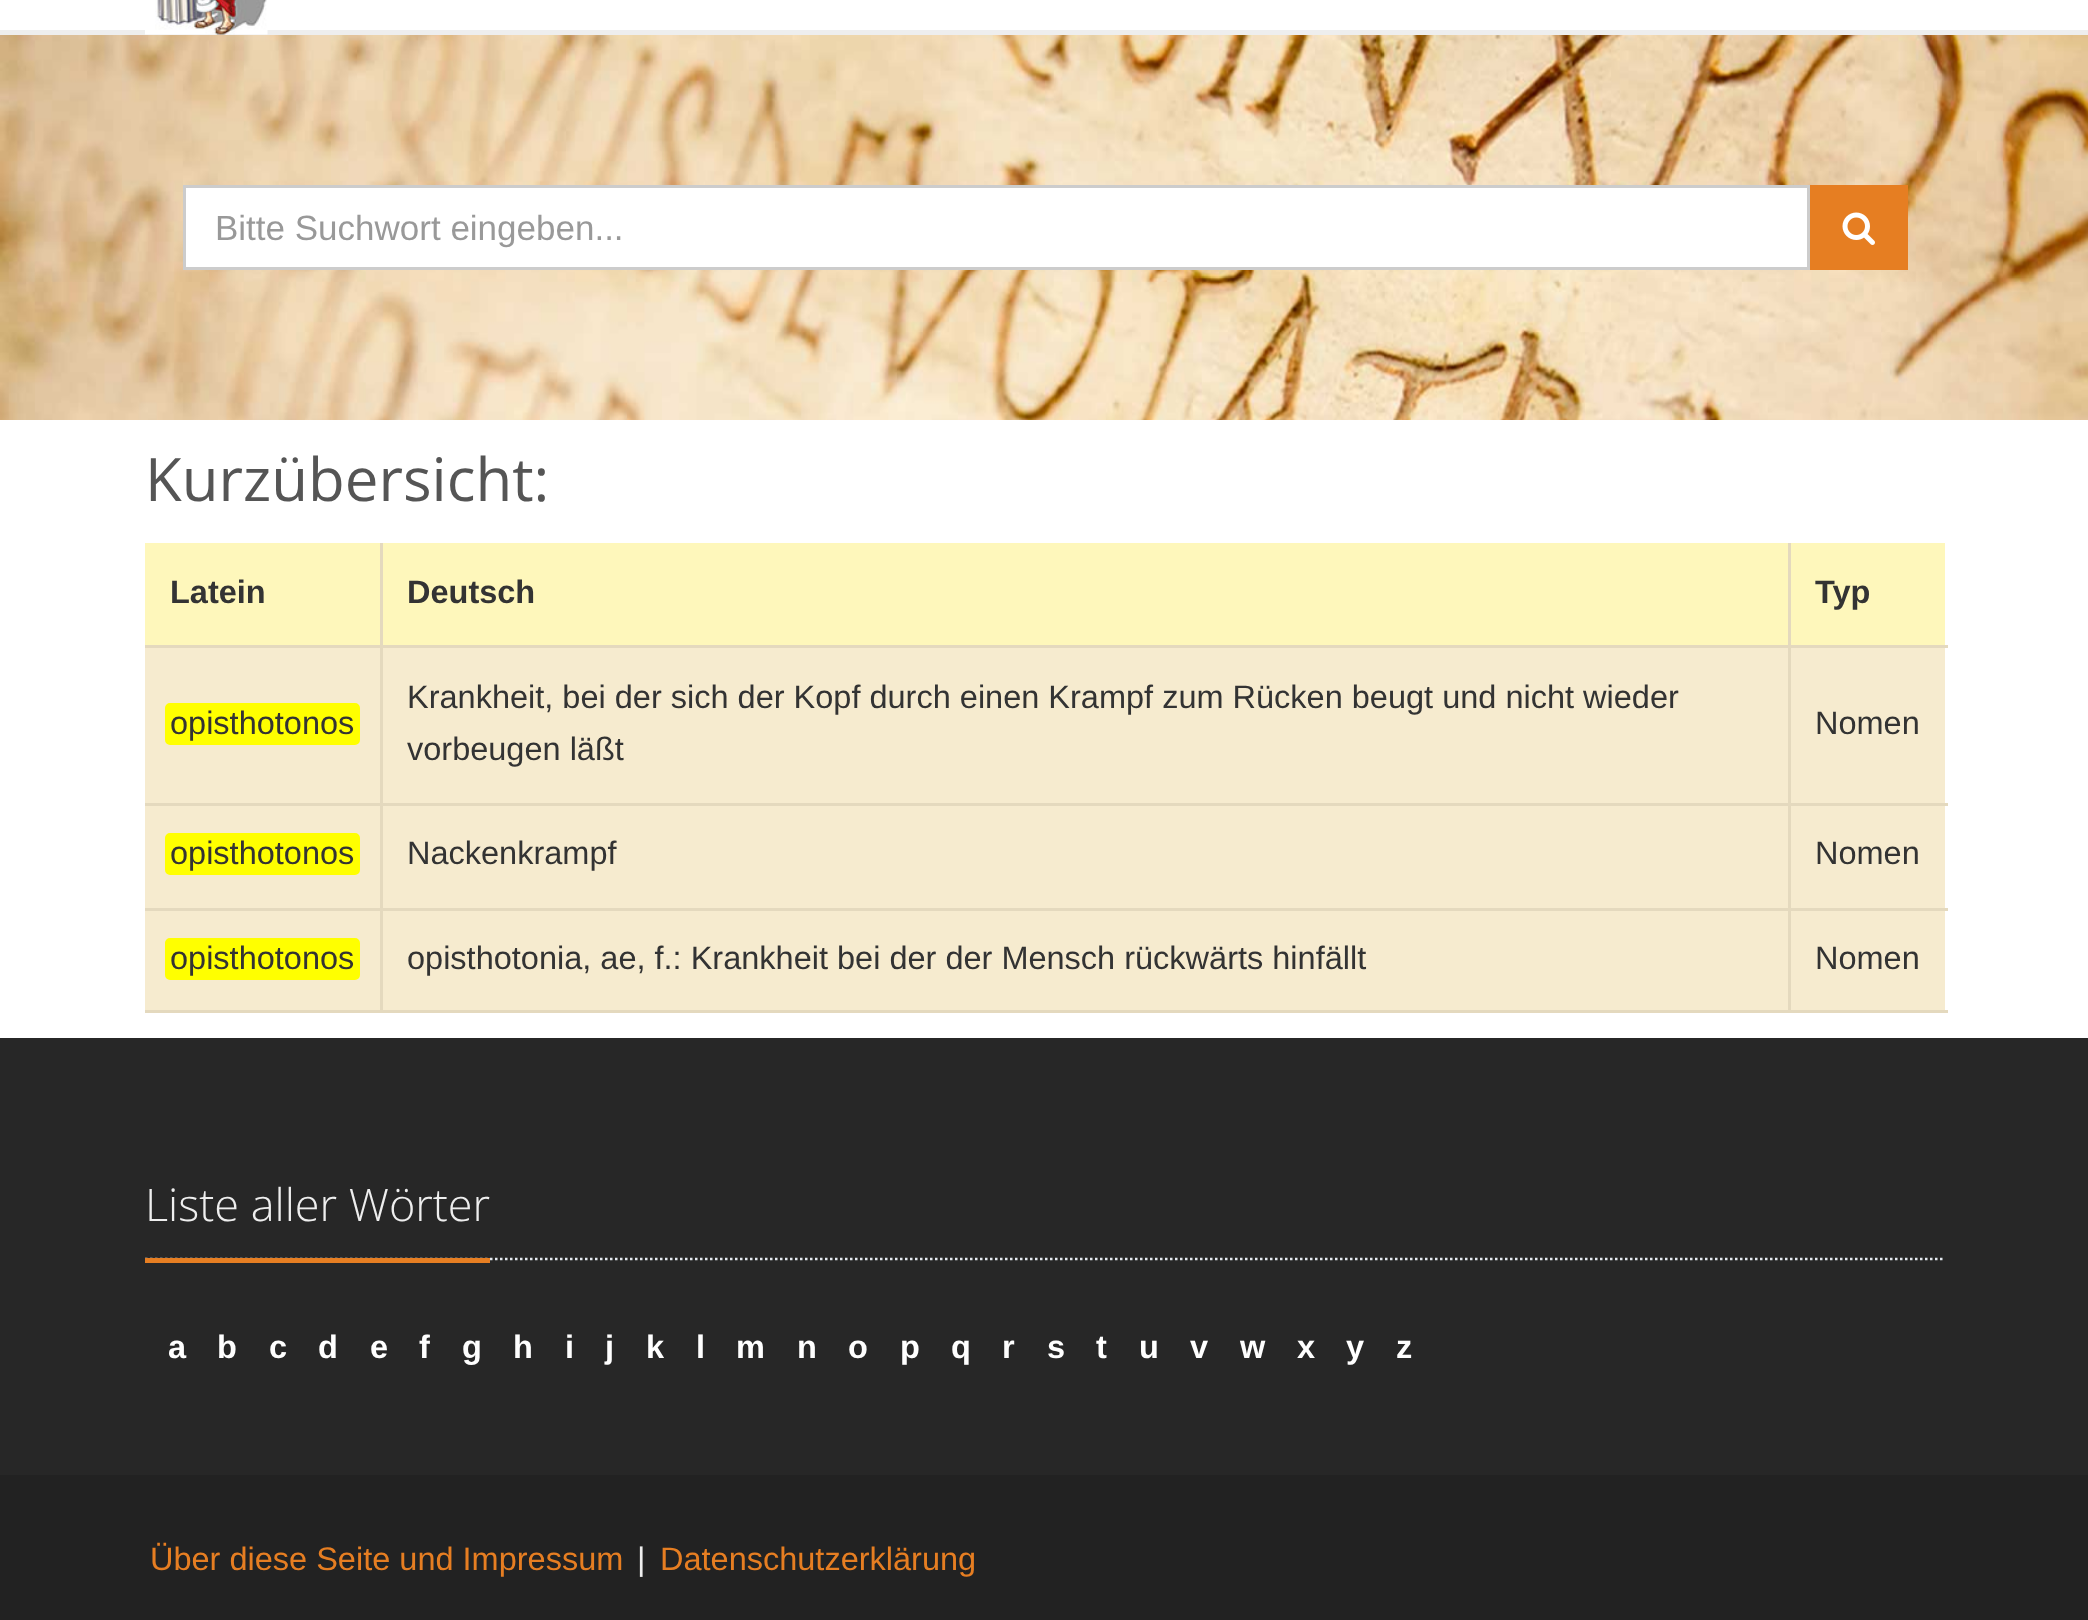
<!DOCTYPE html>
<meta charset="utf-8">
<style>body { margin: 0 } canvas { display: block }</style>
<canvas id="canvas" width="2088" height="1620"></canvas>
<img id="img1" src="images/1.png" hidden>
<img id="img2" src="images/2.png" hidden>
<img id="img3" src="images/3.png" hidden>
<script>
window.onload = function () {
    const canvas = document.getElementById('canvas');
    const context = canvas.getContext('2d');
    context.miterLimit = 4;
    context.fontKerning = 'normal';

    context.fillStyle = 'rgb(255, 255, 255)';
    context.fillRect(0, 0, 2088, 1620);
    context.fillStyle = 'rgb(238, 238, 238)';
    context.fillRect(0, 30, 2088, 5);
    context.drawImage(document.getElementById('img1'), 145, 0, 123, 35);
    context.drawImage(document.getElementById('img2'), 0, 35, 2088, 385);
    context.fillStyle = 'rgb(255, 255, 255)';
    context.beginPath();
    context.rect(184.5, 186.5, 1624, 82);
    context.fill();
    context.strokeStyle = 'rgb(204, 204, 204)';
    context.lineWidth = 3;
    context.stroke();
    context.fillStyle = 'rgb(230, 126, 34)';
    context.fillRect(1810, 185, 98, 85);
    context.drawImage(document.getElementById('img3'), 1842, 212, 33, 33);
    context.fillStyle = 'rgb(254, 247, 187)';
    context.fillRect(145, 543, 235, 102);
    context.fillStyle = 'rgb(228, 217, 190)';
    context.fillRect(1788, 1010, 160, 3);
    context.fillRect(1788, 908, 3, 105);
    context.fillRect(1788, 908, 160, 3);
    context.fillRect(1788, 803, 3, 107);
    context.fillRect(1788, 803, 160, 3);
    context.fillRect(1788, 645, 3, 160);
    context.fillRect(1788, 645, 160, 3);
    context.fillRect(1788, 543, 3, 105);
    context.fillRect(380, 1010, 1410, 3);
    context.fillRect(380, 908, 3, 105);
    context.fillRect(380, 908, 1410, 3);
    context.fillRect(380, 803, 3, 107);
    context.fillRect(380, 803, 1410, 3);
    context.fillRect(380, 645, 3, 160);
    context.fillRect(380, 645, 1410, 3);
    context.fillRect(380, 543, 3, 105);
    context.fillRect(145, 645, 238, 3);
    context.fillStyle = 'rgb(254, 247, 187)';
    context.fillRect(383, 543, 1405, 102);
    context.fillRect(1791, 543, 154, 102);
    context.fillStyle = 'rgb(246, 235, 207)';
    context.fillRect(145, 648, 235, 155);
    context.fillStyle = 'rgb(228, 217, 190)';
    context.fillRect(145, 803, 238, 3);
    context.fillStyle = 'rgb(255, 255, 0)';
    context.beginPath();
    context.roundRect(166.5, 704.5, 192, 39, 3.5);
    context.fill();
    context.strokeStyle = 'rgb(255, 255, 0)';
    context.stroke();
    context.fillStyle = 'rgb(246, 235, 207)';
    context.fillRect(383, 648, 1405, 155);
    context.fillRect(1791, 648, 154, 155);
    context.fillRect(145, 806, 235, 102);
    context.fillStyle = 'rgb(228, 217, 190)';
    context.fillRect(145, 908, 238, 3);
    context.fillStyle = 'rgb(255, 255, 0)';
    context.beginPath();
    context.roundRect(166.5, 834.5, 192, 39, 3.5);
    context.fill();
    context.stroke();
    context.fillStyle = 'rgb(246, 235, 207)';
    context.fillRect(383, 806, 1405, 102);
    context.fillRect(1791, 806, 154, 102);
    context.fillRect(145, 911, 235, 99);
    context.fillStyle = 'rgb(228, 217, 190)';
    context.fillRect(145, 1010, 238, 3);
    context.fillStyle = 'rgb(255, 255, 0)';
    context.beginPath();
    context.roundRect(166.5, 939.5, 192, 39, 3.5);
    context.fill();
    context.stroke();
    context.fillStyle = 'rgb(246, 235, 207)';
    context.fillRect(383, 911, 1405, 99);
    context.fillRect(1791, 911, 154, 99);
    context.fillStyle = 'rgb(39, 39, 39)';
    context.fillRect(0, 1038, 2088, 437);
    context.beginPath();
    context.moveTo(145, 1259);
    context.lineTo(1945, 1259);
    context.strokeStyle = 'rgb(228, 233, 240)';
    context.lineWidth = 2.5;
    context.setLineDash([2.5, 2.5]);
    context.stroke();
    context.fillStyle = 'rgb(230, 126, 34)';
    context.fillRect(145, 1258, 345, 5);
    context.fillStyle = 'rgb(34, 34, 34)';
    context.fillRect(0, 1475, 2088, 145);
    context.font = '35px Liberation Sans';
    context.fillStyle = 'rgb(153, 153, 153)';
    context.fillText('Bitte Suchwort eingeben...', 215, 240);
    context.font = '60px Open Sans';
    context.fillStyle = 'rgb(85, 85, 85)';
    context.fillText('Kurzübersicht:', 145, 501);
    context.font = 'bold 32.5px Liberation Sans';
    context.fillStyle = 'rgb(51, 51, 51)';
    context.fillText('Latein', 170, 603);
    context.fillText('Deutsch', 407, 603);
    context.fillText('Typ', 1815, 603);
    context.font = '32.5px Liberation Sans';
    context.fillText('opisthotonos', 170, 734);
    context.fillText('Krankheit, bei der sich der Kopf durch einen Krampf zum Rücken beugt und nicht wieder', 407, 708);
    context.fillText('vorbeugen läßt', 407, 760);
    context.fillText('Nomen', 1815, 734);
    context.fillText('opisthotonos', 170, 864);
    context.fillText('Nackenkrampf', 407, 864);
    context.fillText('Nomen', 1815, 864);
    context.fillText('opisthotonos', 170, 969);
    context.fillText('opisthotonia, ae, f.: Krankheit bei der der Mensch rückwärts hinfällt', 407, 969);
    context.fillText('Nomen', 1815, 969);
    context.font = '300 45px Open Sans';
    context.fillStyle = 'rgb(238, 238, 238)';
    context.fillText('Liste aller Wörter', 145, 1221);
    context.font = 'bold 32.5px Liberation Sans';
    context.fillStyle = 'rgb(255, 255, 255)';
    context.fillText('a', 168, 1358);
    context.fillText('b', 217, 1358);
    context.fillText('c', 269, 1358);
    context.fillText('d', 318, 1358);
    context.fillText('e', 370, 1358);
    context.fillText('f', 419, 1358);
    context.fillText('g', 462, 1358);
    context.fillText('h', 513, 1358);
    context.fillText('i', 565, 1358);
    context.fillText('j', 605, 1358);
    context.fillText('k', 646, 1358);
    context.fillText('l', 696, 1358);
    context.fillText('m', 736, 1358);
    context.fillText('n', 797, 1358);
    context.fillText('o', 848, 1358);
    context.fillText('p', 900, 1358);
    context.fillText('q', 951, 1358);
    context.fillText('r', 1002, 1358);
    context.fillText('s', 1047, 1358);
    context.fillText('t', 1096, 1358);
    context.fillText('u', 1139, 1358);
    context.fillText('v', 1190, 1358);
    context.fillText('w', 1240, 1358);
    context.fillText('x', 1297, 1358);
    context.fillText('y', 1346, 1358);
    context.fillText('z', 1396, 1358);
    context.font = '32.5px Liberation Sans';
    context.fillStyle = 'rgb(230, 126, 34)';
    context.fillText('Über diese Seite und Impressum', 150, 1570);
    context.fillStyle = 'rgb(238, 238, 238)';
    context.fillText('|', 637, 1570);
    context.fillStyle = 'rgb(230, 126, 34)';
    context.fillText('Datenschutzerklärung', 660, 1570);
};
</script>
